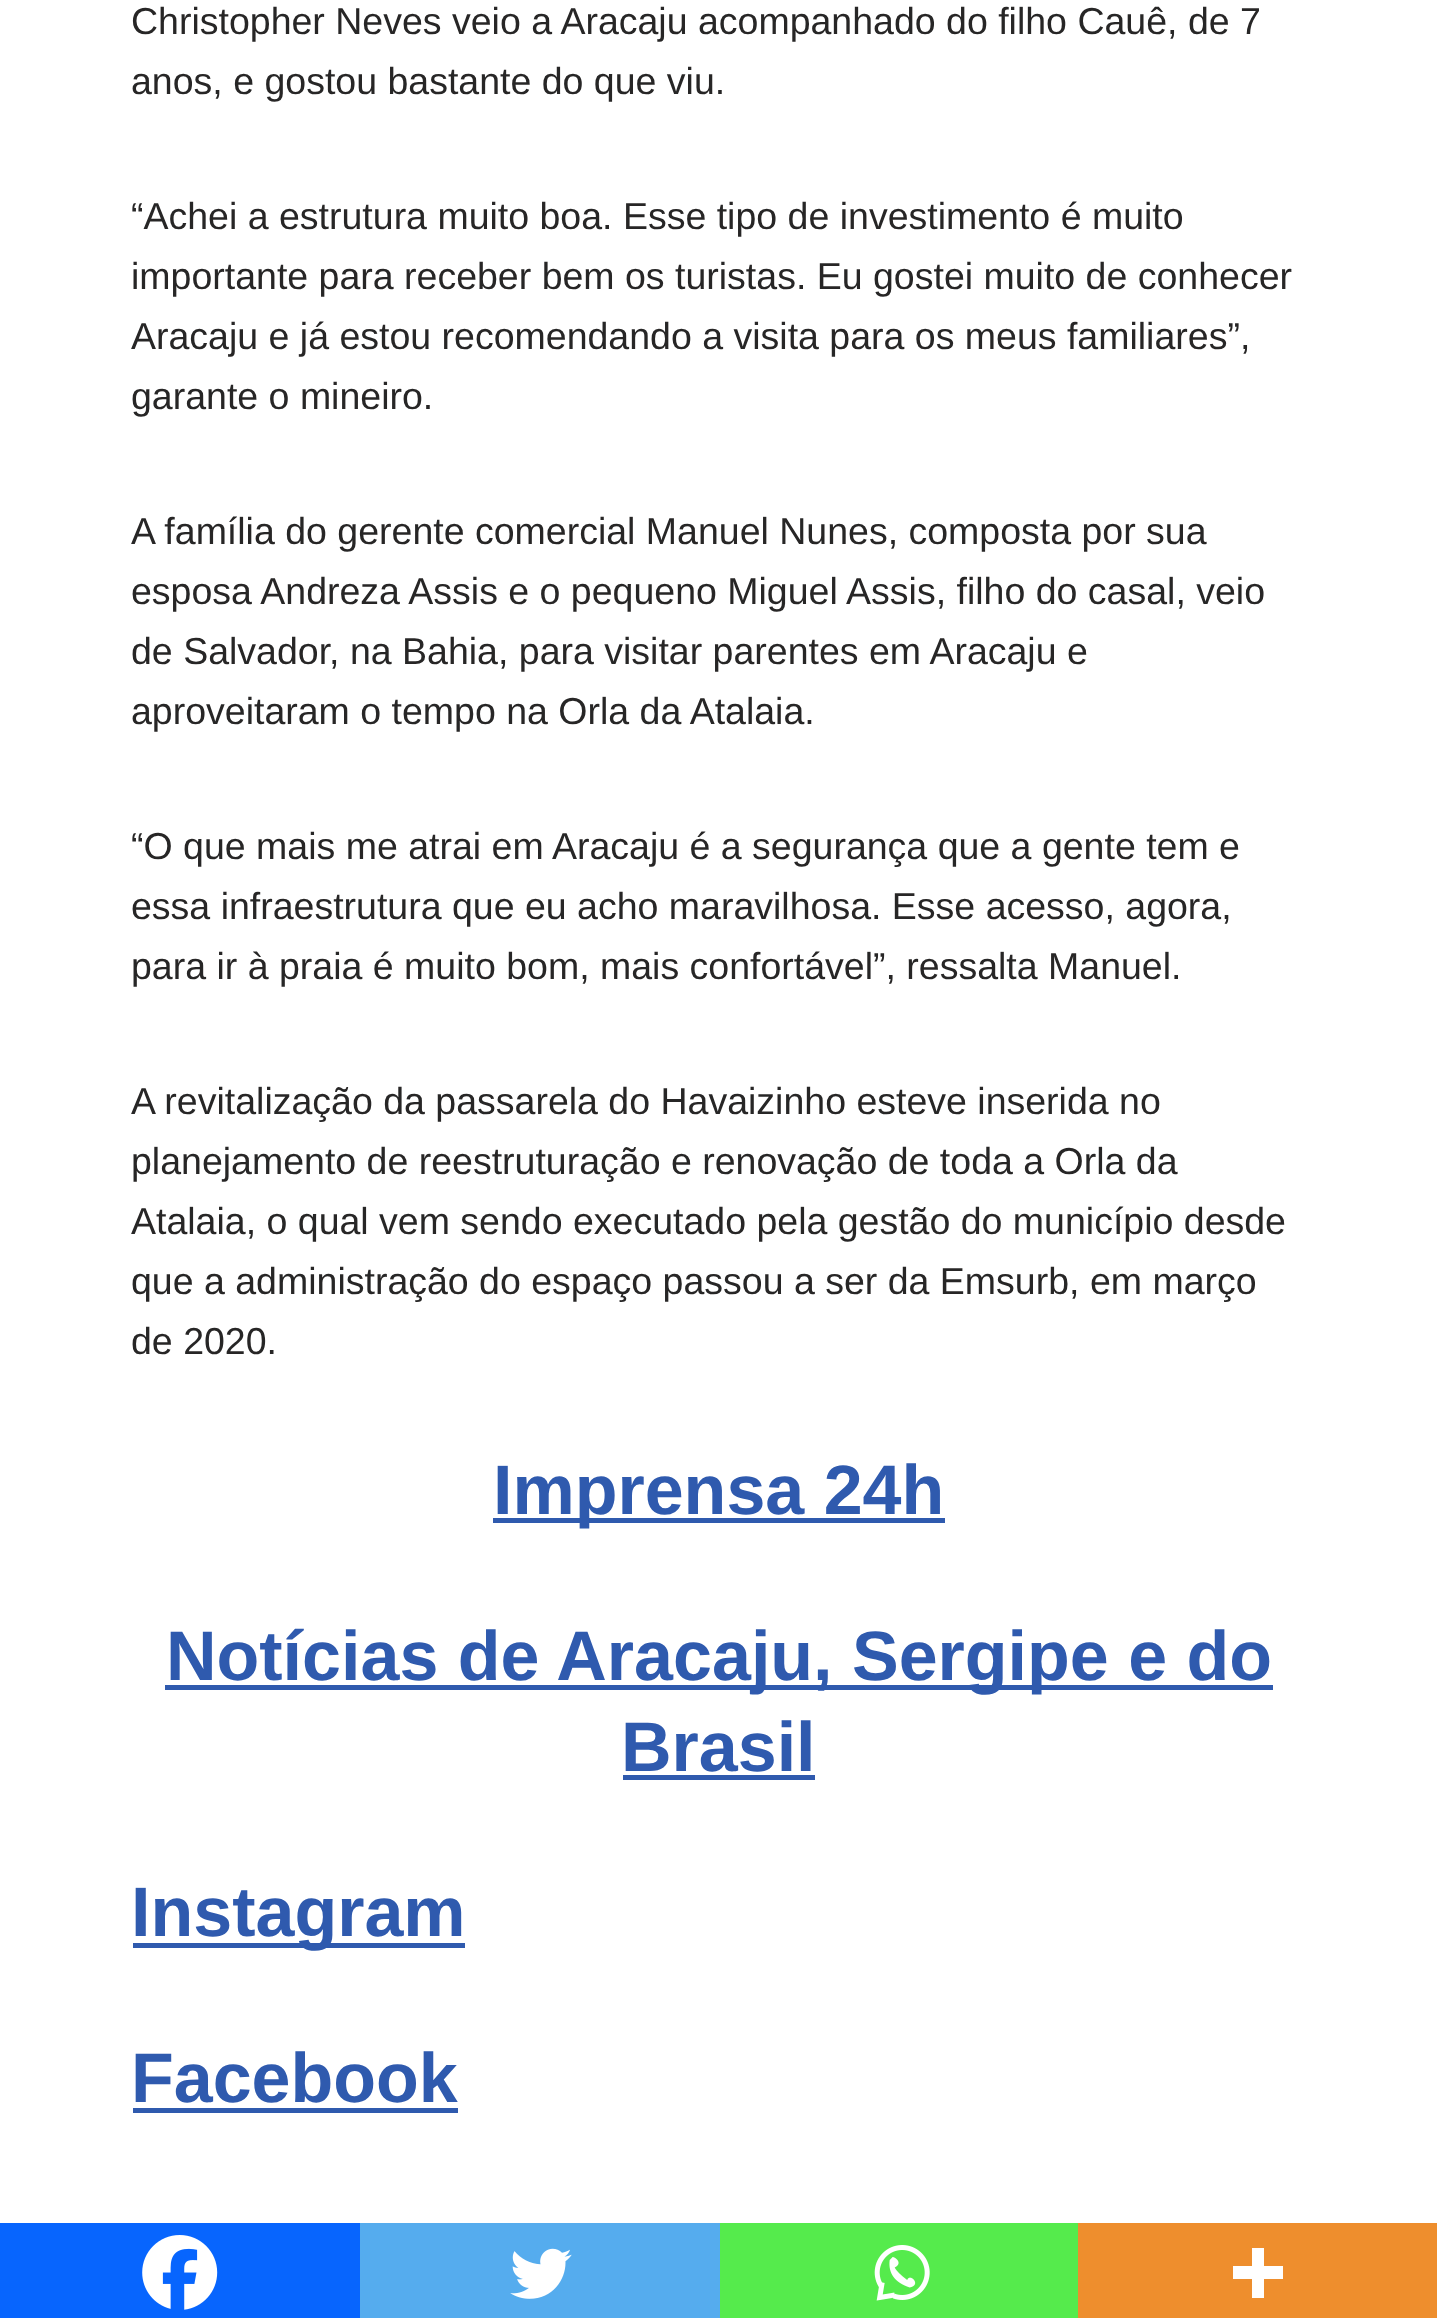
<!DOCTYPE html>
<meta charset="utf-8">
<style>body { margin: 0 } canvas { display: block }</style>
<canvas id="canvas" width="1437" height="2318"></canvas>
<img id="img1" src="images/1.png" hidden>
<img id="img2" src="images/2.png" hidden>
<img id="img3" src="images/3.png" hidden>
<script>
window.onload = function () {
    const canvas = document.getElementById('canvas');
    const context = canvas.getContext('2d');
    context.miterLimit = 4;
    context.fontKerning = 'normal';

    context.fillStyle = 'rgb(255, 255, 255)';
    context.fillRect(0, 0, 1437, 2318);
    context.fillStyle = 'rgb(47, 90, 174)';
    context.fillRect(493, 1518, 452, 5);
    context.fillRect(165, 1685, 1108, 5);
    context.fillRect(623, 1775, 192, 5);
    context.fillRect(133, 1943, 332, 5);
    context.fillRect(133, 2108, 325, 5);
    context.fillStyle = 'rgb(7, 101, 254)';
    context.fillRect(0, 2223, 360, 95);
    context.drawImage(document.getElementById('img1'), 142, 2235, 76, 75);
    context.fillStyle = 'rgb(85, 172, 238)';
    context.fillRect(360, 2223, 360, 95);
    context.drawImage(document.getElementById('img2'), 510, 2248, 62, 51);
    context.fillStyle = 'rgb(85, 235, 76)';
    context.fillRect(720, 2223, 358, 95);
    context.drawImage(document.getElementById('img3'), 874, 2245, 56, 56);
    context.fillStyle = 'rgb(238, 142, 45)';
    context.fillRect(1078, 2223, 359, 95);
    context.fillStyle = 'rgb(255, 255, 255)';
    context.beginPath();
    context.moveTo(1264, 2266);
    context.lineTo(1264, 2248);
    context.lineTo(1252, 2248);
    context.lineTo(1252, 2266);
    context.lineTo(1233, 2266);
    context.lineTo(1233, 2279);
    context.lineTo(1252, 2279);
    context.lineTo(1252, 2298);
    context.lineTo(1264, 2298);
    context.lineTo(1264, 2279);
    context.lineTo(1283, 2279);
    context.lineTo(1283, 2266);
    context.closePath();
    context.fill('evenodd');
    context.font = '37.5px Liberation Sans';
    context.fillStyle = 'rgb(39, 38, 38)';
    context.fillText('Christopher Neves veio a Aracaju acompanhado do filho Cauê, de 7', 131, 34);
    context.fillText('anos, e gostou bastante do que viu.', 131, 94);
    context.fillText('“Achei a estrutura muito boa. Esse tipo de investimento é muito', 131, 229);
    context.fillText('importante para receber bem os turistas. Eu gostei muito de conhecer', 131, 289);
    context.fillText('Aracaju e já estou recomendando a visita para os meus familiares”,', 131, 349);
    context.fillText('garante o mineiro.', 131, 409);
    context.fillText('A família do gerente comercial Manuel Nunes, composta por sua', 131, 544);
    context.fillText('esposa Andreza Assis e o pequeno Miguel Assis, filho do casal, veio', 131, 604);
    context.fillText('de Salvador, na Bahia, para visitar parentes em Aracaju e', 131, 664);
    context.fillText('aproveitaram o tempo na Orla da Atalaia.', 131, 724);
    context.fillText('“O que mais me atrai em Aracaju é a segurança que a gente tem e', 131, 859);
    context.fillText('essa infraestrutura que eu acho maravilhosa. Esse acesso, agora,', 131, 919);
    context.fillText('para ir à praia é muito bom, mais confortável”, ressalta Manuel.', 131, 979);
    context.fillText('A revitalização da passarela do Havaizinho esteve inserida no', 131, 1114);
    context.fillText('planejamento de reestruturação e renovação de toda a Orla da', 131, 1174);
    context.fillText('Atalaia, o qual vem sendo executado pela gestão do município desde', 131, 1234);
    context.fillText('que a administração do espaço passou a ser da Emsurb, em março', 131, 1294);
    context.fillText('de 2020.', 131, 1354);
    context.font = 'bold 70px Liberation Sans';
    context.fillStyle = 'rgb(47, 90, 174)';
    context.fillText('Imprensa 24h', 493, 1514);
    context.fillText('Notícias de Aracaju, Sergipe e do', 166, 1680);
    context.fillText('Brasil', 621, 1771);
    context.fillText('Instagram', 131, 1936);
    context.fillText('Facebook', 131, 2102);
};
</script>
